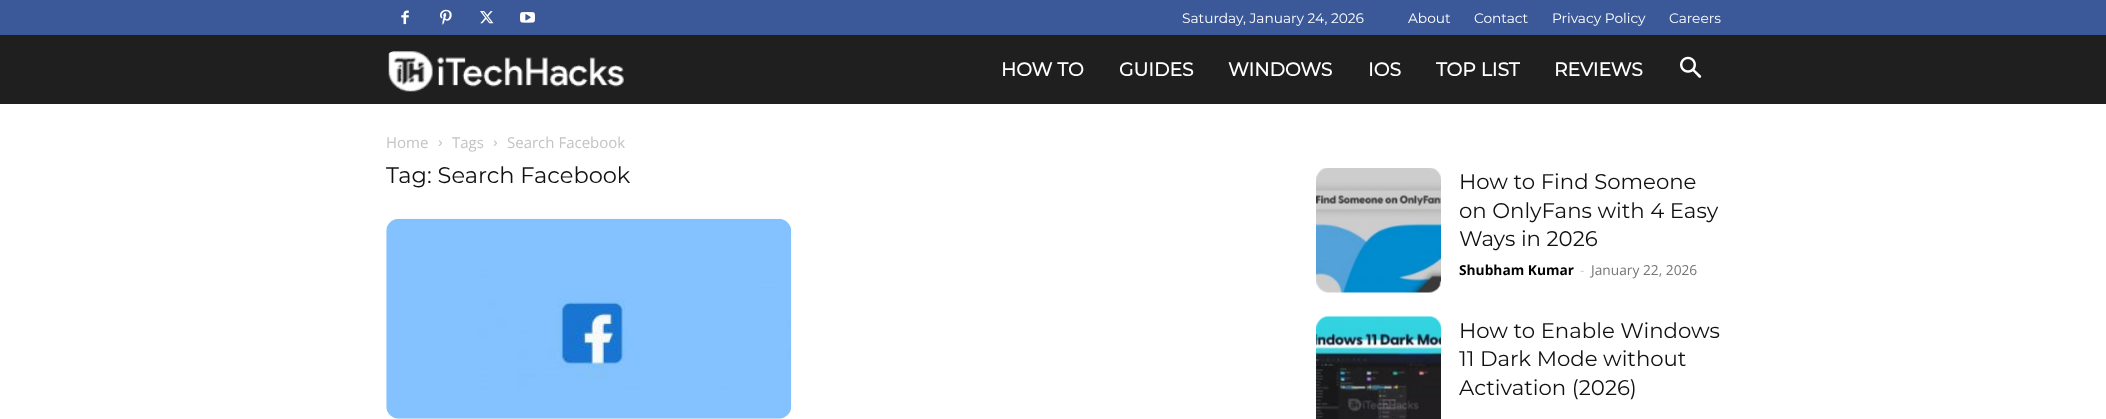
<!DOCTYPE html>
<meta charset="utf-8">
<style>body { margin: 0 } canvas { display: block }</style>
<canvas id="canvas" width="2106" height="419"></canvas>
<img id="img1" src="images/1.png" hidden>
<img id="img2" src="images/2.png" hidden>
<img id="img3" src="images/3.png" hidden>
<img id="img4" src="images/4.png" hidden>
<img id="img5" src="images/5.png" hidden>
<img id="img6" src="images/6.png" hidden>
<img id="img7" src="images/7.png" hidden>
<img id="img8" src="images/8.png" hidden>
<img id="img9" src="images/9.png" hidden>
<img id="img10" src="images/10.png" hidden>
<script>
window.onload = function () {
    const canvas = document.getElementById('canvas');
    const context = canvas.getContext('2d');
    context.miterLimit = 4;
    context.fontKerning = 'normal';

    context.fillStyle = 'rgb(255, 255, 255)';
    context.fillRect(0, 0, 2106, 419);
    context.fillStyle = 'rgb(59, 89, 152)';
    context.fillRect(0, 0, 2106, 35);
    context.drawImage(document.getElementById('img1'), 401, 10, 8, 15);
    context.drawImage(document.getElementById('img2'), 440, 9, 12, 16);
    context.drawImage(document.getElementById('img3'), 480, 11, 14, 13);
    context.drawImage(document.getElementById('img4'), 520, 12, 15, 11);
    context.fillStyle = 'rgb(31, 31, 31)';
    context.fillRect(0, 35, 2106, 69);
    context.drawImage(document.getElementById('img5'), 388, 51, 236, 41);
    context.drawImage(document.getElementById('img6'), 1680, 56, 22, 22);
    context.drawImage(document.getElementById('img7'), 438, 140, 4, 6);
    context.drawImage(document.getElementById('img7'), 493, 140, 4, 6);
    context.drawImage(document.getElementById('img8'), 386, 218, 406, 201);
    context.drawImage(document.getElementById('img9'), 1316, 168, 125, 125);
    context.drawImage(document.getElementById('img10'), 1316, 315, 125, 104);
    context.font = '100 13.75px Montserrat';
    context.fillStyle = 'rgb(255, 255, 255)';
    context.fillText('Saturday, January 24, 2026', 1182, 23);
    context.fillText('About', 1408, 23);
    context.fillText('Contact', 1474, 23);
    context.fillText('Privacy Policy', 1552, 23);
    context.fillText('Careers', 1669, 23);
    context.font = 'bold 18.75px Montserrat';
    context.fillText('HOW TO', 1001, 76);
    context.fillText('GUIDES', 1119, 76);
    context.fillText('WINDOWS', 1228, 76);
    context.fillText('IOS', 1368, 76);
    context.fillText('TOP LIST', 1436, 76);
    context.fillText('REVIEWS', 1554, 76);
    context.font = '15px Open Sans';
    context.fillStyle = 'rgb(195, 195, 195)';
    context.fillText('Home', 386, 148);
    context.fillText('Tags', 452, 148);
    context.fillText('Search Facebook', 507, 148);
    context.font = '100 22.5px Montserrat';
    context.fillStyle = 'rgb(17, 17, 17)';
    context.fillText('Tag: Search Facebook', 386, 183);
    context.font = '100 21.25px Montserrat';
    context.fillText('How to Find Someone', 1459, 189);
    context.fillText('on OnlyFans with 4 Easy', 1459, 218);
    context.fillText('Ways in 2026', 1459, 246);
    context.font = 'bold 13.75px Open Sans';
    context.fillStyle = 'rgb(0, 0, 0)';
    context.fillText('Shubham Kumar', 1459, 275);
    context.font = '13.75px Open Sans';
    context.fillStyle = 'rgb(204, 204, 204)';
    context.fillText('-', 1580, 275);
    context.fillStyle = 'rgb(118, 118, 118)';
    context.fillText('January 22, 2026', 1591, 275);
    context.font = '100 21.25px Montserrat';
    context.fillStyle = 'rgb(17, 17, 17)';
    context.fillText('How to Enable Windows', 1459, 338);
    context.fillText('11 Dark Mode without', 1459, 366);
    context.fillText('Activation (2026)', 1459, 395);
};
</script>
